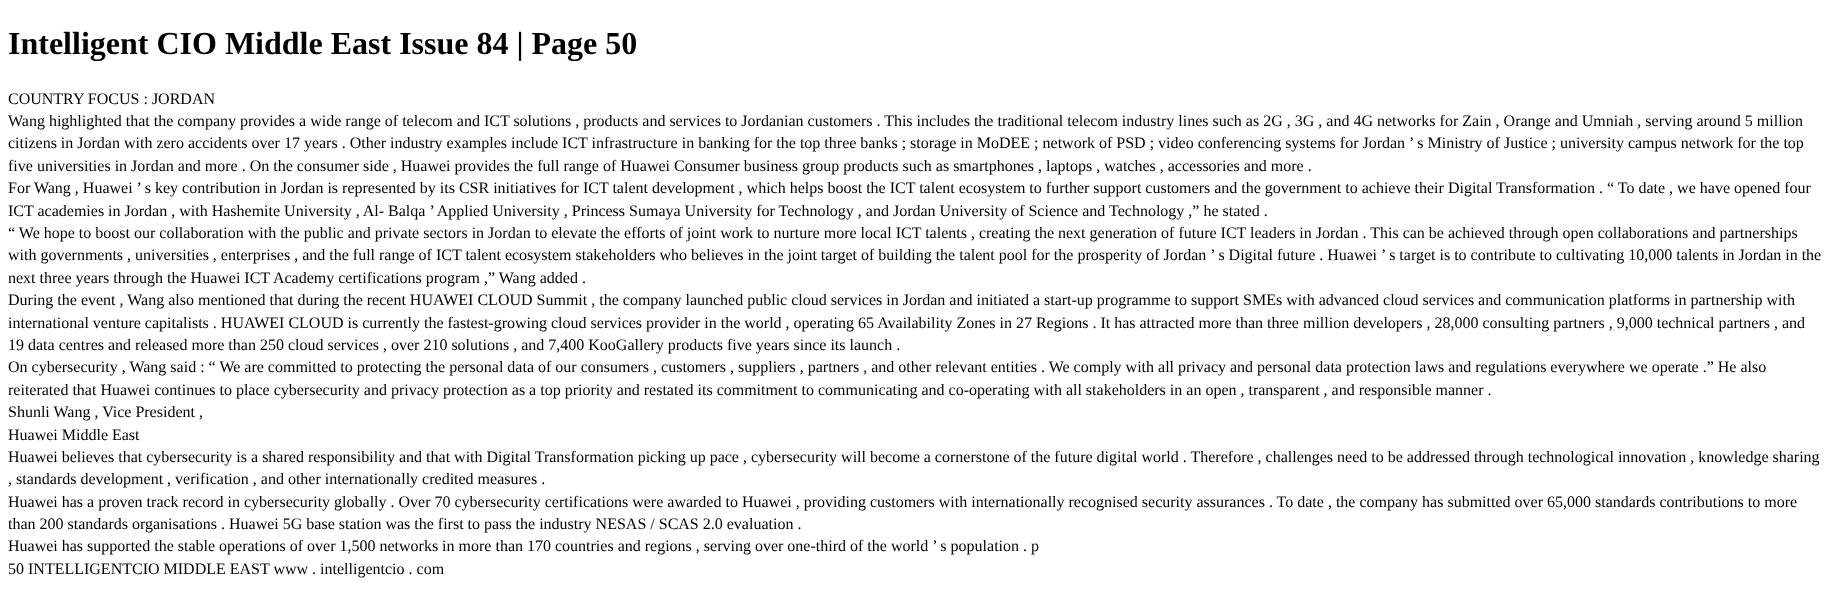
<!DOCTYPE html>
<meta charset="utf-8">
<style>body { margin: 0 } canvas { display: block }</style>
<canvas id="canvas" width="1830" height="594"></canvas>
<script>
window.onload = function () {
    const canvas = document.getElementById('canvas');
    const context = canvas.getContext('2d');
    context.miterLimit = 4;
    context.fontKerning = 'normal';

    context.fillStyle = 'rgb(255, 255, 255)';
    context.fillRect(0, 0, 1830, 594);
    context.font = 'bold 32px Liberation Serif';
    context.fillStyle = 'rgb(0, 0, 0)';
    context.fillText('Intelligent CIO Middle East Issue 84 | Page 50', 8, 54);
    context.font = '16px Liberation Serif';
    context.fillText('COUNTRY FOCUS : JORDAN', 8, 104);
    context.fillText('Wang highlighted that the company provides a wide range of telecom and ICT solutions , products and services to Jordanian customers . This includes the traditional telecom industry lines such as 2G , 3G , and 4G networks for Zain , Orange and Umniah , serving around 5 million', 8, 126);
    context.fillText('citizens in Jordan with zero accidents over 17 years . Other industry examples include ICT infrastructure in banking for the top three banks ; storage in MoDEE ; network of PSD ; video conferencing systems for Jordan ’ s Ministry of Justice ; university campus network for the top', 8, 148);
    context.fillText('five universities in Jordan and more . On the consumer side , Huawei provides the full range of Huawei Consumer business group products such as smartphones , laptops , watches , accessories and more .', 8, 171);
    context.fillText('For Wang , Huawei ’ s key contribution in Jordan is represented by its CSR initiatives for ICT talent development , which helps boost the ICT talent ecosystem to further support customers and the government to achieve their Digital Transformation . “ To date , we have opened four', 8, 193);
    context.fillText('ICT academies in Jordan , with Hashemite University , Al- Balqa ’ Applied University , Princess Sumaya University for Technology , and Jordan University of Science and Technology ,” he stated .', 8, 216);
    context.fillText('“ We hope to boost our collaboration with the public and private sectors in Jordan to elevate the efforts of joint work to nurture more local ICT talents , creating the next generation of future ICT leaders in Jordan . This can be achieved through open collaborations and partnerships', 8, 238);
    context.fillText('with governments , universities , enterprises , and the full range of ICT talent ecosystem stakeholders who believes in the joint target of building the talent pool for the prosperity of Jordan ’ s Digital future . Huawei ’ s target is to contribute to cultivating 10,000 talents in Jordan in the', 8, 260);
    context.fillText('next three years through the Huawei ICT Academy certifications program ,” Wang added .', 8, 283);
    context.fillText('During the event , Wang also mentioned that during the recent HUAWEI CLOUD Summit , the company launched public cloud services in Jordan and initiated a start-up programme to support SMEs with advanced cloud services and communication platforms in partnership with', 8, 305);
    context.fillText('international venture capitalists . HUAWEI CLOUD is currently the fastest-growing cloud services provider in the world , operating 65 Availability Zones in 27 Regions . It has attracted more than three million developers , 28,000 consulting partners , 9,000 technical partners , and', 8, 328);
    context.fillText('19 data centres and released more than 250 cloud services , over 210 solutions , and 7,400 KooGallery products five years since its launch .', 8, 350);
    context.fillText('On cybersecurity , Wang said : “ We are committed to protecting the personal data of our consumers , customers , suppliers , partners , and other relevant entities . We comply with all privacy and personal data protection laws and regulations everywhere we operate .” He also', 8, 372);
    context.fillText('reiterated that Huawei continues to place cybersecurity and privacy protection as a top priority and restated its commitment to communicating and co-operating with all stakeholders in an open , transparent , and responsible manner .', 8, 395);
    context.fillText('Shunli Wang , Vice President ,', 8, 417);
    context.fillText('Huawei Middle East', 8, 440);
    context.fillText('Huawei believes that cybersecurity is a shared responsibility and that with Digital Transformation picking up pace , cybersecurity will become a cornerstone of the future digital world . Therefore , challenges need to be addressed through technological innovation , knowledge sharing', 8, 462);
    context.fillText(', standards development , verification , and other internationally credited measures .', 8, 484);
    context.fillText('Huawei has a proven track record in cybersecurity globally . Over 70 cybersecurity certifications were awarded to Huawei , providing customers with internationally recognised security assurances . To date , the company has submitted over 65,000 standards contributions to more', 8, 507);
    context.fillText('than 200 standards organisations . Huawei 5G base station was the first to pass the industry NESAS / SCAS 2.0 evaluation .', 8, 529);
    context.fillText('Huawei has supported the stable operations of over 1,500 networks in more than 170 countries and regions , serving over one-third of the world ’ s population . p', 8, 551);
    context.fillText('50 INTELLIGENTCIO MIDDLE EAST www . intelligentcio . com', 8, 574);
};
</script>
